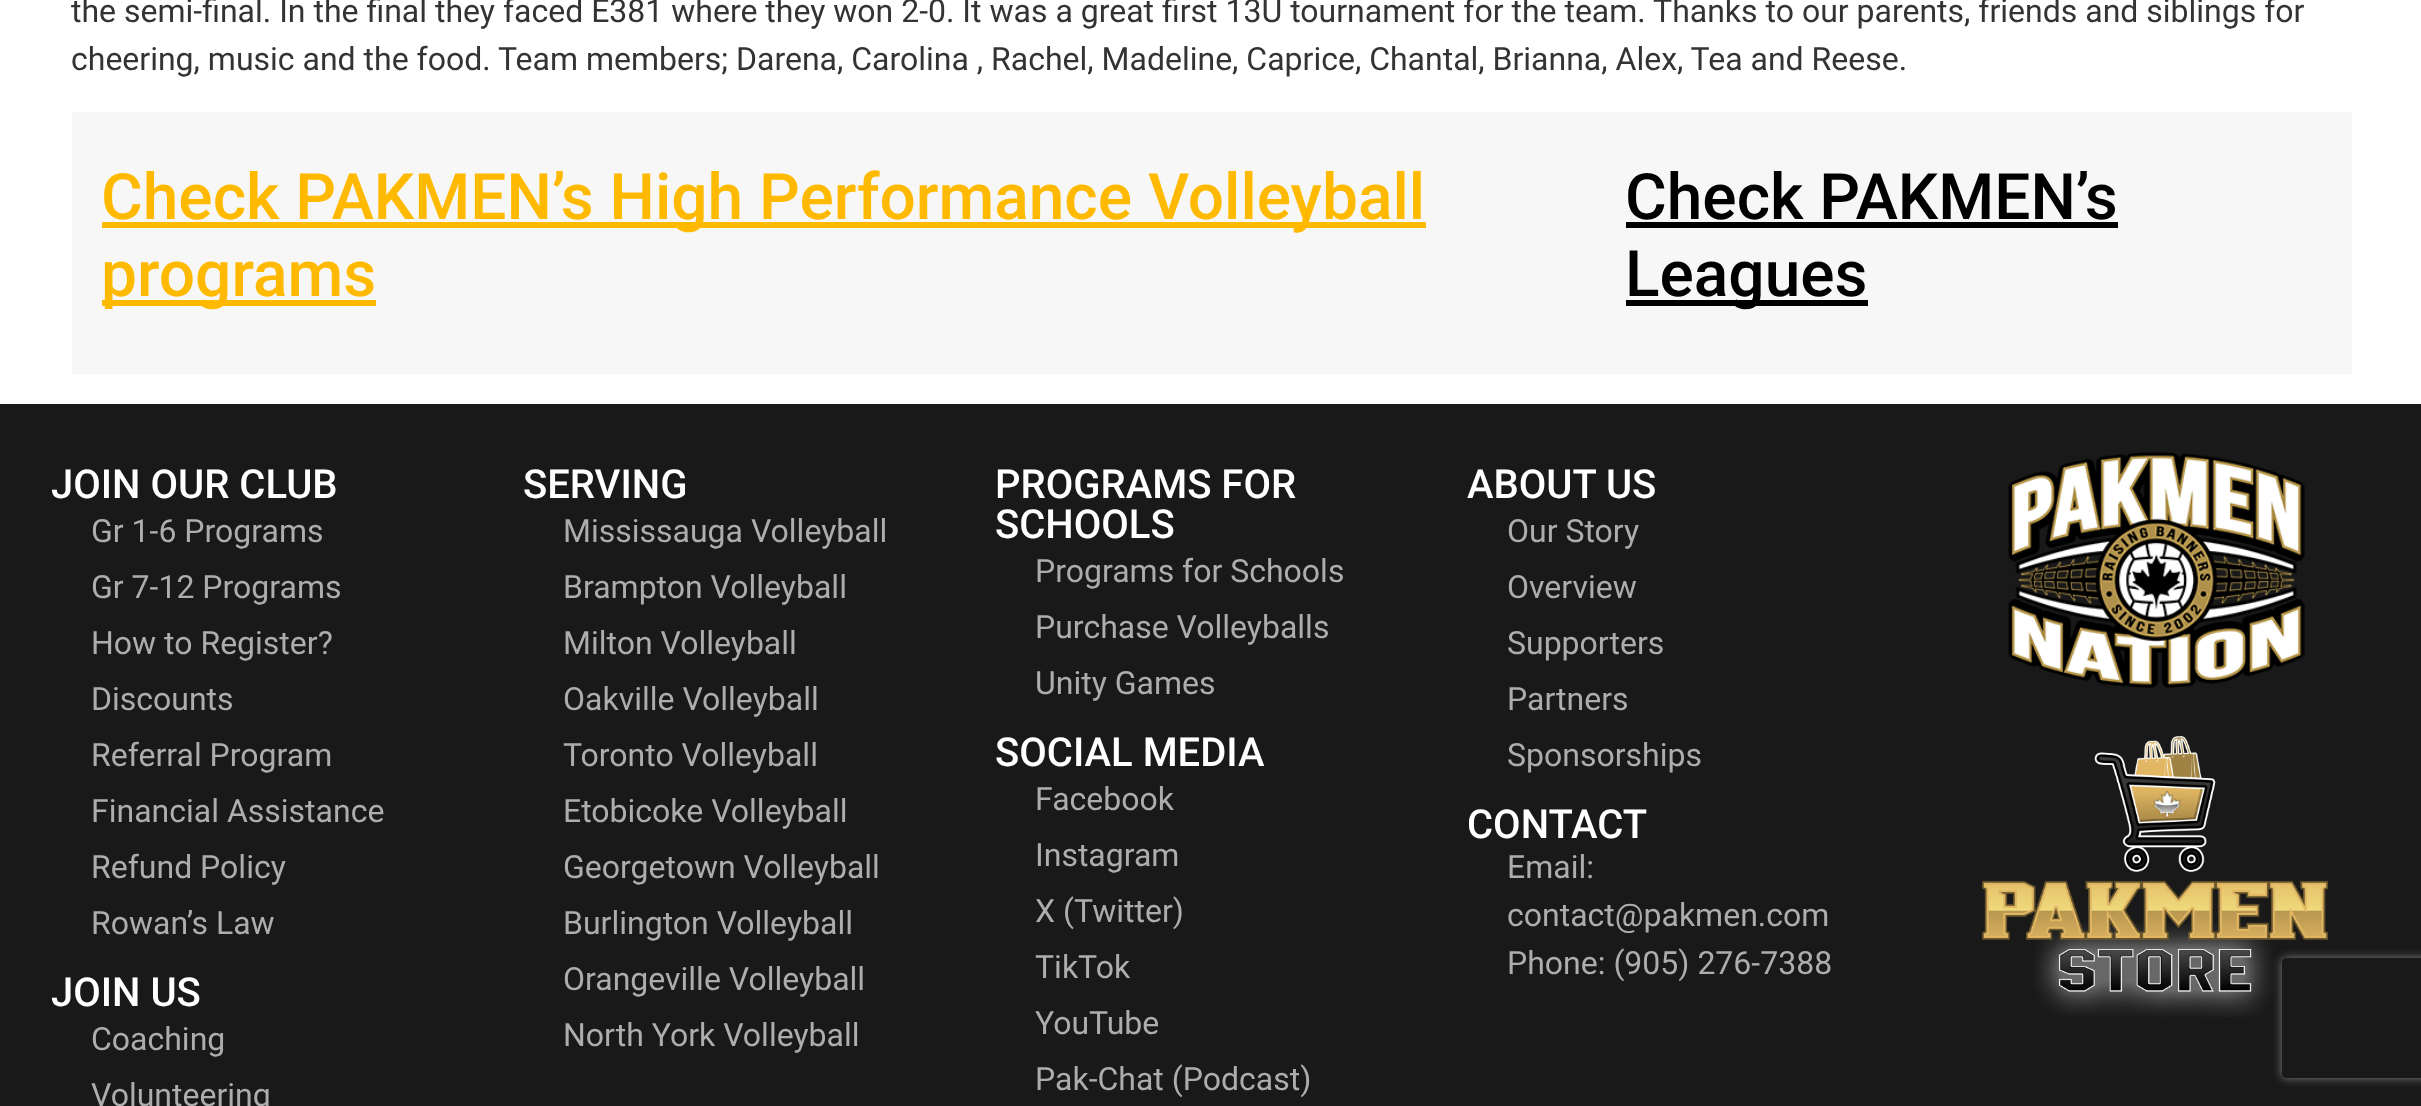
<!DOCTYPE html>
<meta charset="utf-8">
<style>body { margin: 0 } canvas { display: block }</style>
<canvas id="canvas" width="2421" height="1106"></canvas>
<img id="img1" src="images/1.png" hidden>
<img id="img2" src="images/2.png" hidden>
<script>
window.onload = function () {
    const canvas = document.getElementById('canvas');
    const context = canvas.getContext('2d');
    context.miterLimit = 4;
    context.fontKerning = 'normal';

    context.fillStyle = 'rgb(255, 255, 255)';
    context.fillRect(0, 0, 2421, 1106);
    context.fillStyle = 'rgb(247, 247, 247)';
    context.fillRect(72, 112, 2280, 262);
    context.fillStyle = 'rgb(255, 186, 0)';
    context.fillRect(102, 222, 1324, 6);
    context.fillRect(102, 300, 274, 6);
    context.fillStyle = 'rgb(0, 0, 0)';
    context.fillRect(1626, 222, 492, 6);
    context.fillRect(1626, 300, 242, 6);
    context.fillStyle = 'rgb(25, 25, 25)';
    context.fillRect(0, 404, 2421, 702);
    context.drawImage(document.getElementById('img1'), 2008, 452, 297, 236);
    context.drawImage(document.getElementById('img2'), 1982, 736, 346, 281);
    context.save();
    context.beginPath();
    context.moveTo(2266, 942);
    context.lineTo(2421, 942);
    context.lineTo(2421, 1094);
    context.lineTo(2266, 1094);
    context.closePath();
    context.moveTo(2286, 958);
    context.lineTo(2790, 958);
    context.bezierCurveTo(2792, 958, 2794, 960, 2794, 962);
    context.lineTo(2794, 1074);
    context.bezierCurveTo(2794, 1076, 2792, 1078, 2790, 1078);
    context.lineTo(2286, 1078);
    context.bezierCurveTo(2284, 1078, 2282, 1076, 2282, 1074);
    context.lineTo(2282, 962);
    context.bezierCurveTo(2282, 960, 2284, 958, 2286, 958);
    context.closePath();
    context.clip('evenodd');
    context.fillStyle = 'rgb(128, 128, 128)';
    context.filter = 'blur(5px)';
    context.beginPath();
    context.roundRect(2282, 958, 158, 120, 4);
    context.fill();
    context.filter = 'none';
    context.restore();
    context.font = '32px Roboto';
    context.fillStyle = 'rgb(51, 51, 51)';
    context.fillText('the semi-final. In the final they faced E381 where they won 2-0. It was a great first 13U tournament for the team. Thanks to our parents, friends and siblings for', 71, 22);
    context.fillText('cheering, music and the food. Team members; Darena, Carolina , Rachel, Madeline, Caprice, Chantal, Brianna, Alex, Tea and Reese.', 71, 70);
    context.font = '500 64px Roboto';
    context.fillStyle = 'rgb(255, 186, 0)';
    context.fillText('Check PAKMEN’s High Performance Volleyball', 101, 219);
    context.fillText('programs', 101, 296);
    context.fillStyle = 'rgb(0, 0, 0)';
    context.fillText('Check PAKMEN’s', 1625, 219);
    context.fillText('Leagues', 1625, 296);
    context.font = '500 40px Roboto';
    context.fillStyle = 'rgb(255, 255, 255)';
    context.fillText('JOIN OUR CLUB', 51, 498);
    context.font = '32px Roboto';
    context.fillStyle = 'rgb(173, 173, 173)';
    context.fillText('Gr 1-6 Programs', 91, 542);
    context.fillText('Gr 7-12 Programs', 91, 598);
    context.fillText('How to Register?', 91, 654);
    context.fillText('Discounts', 91, 710);
    context.fillText('Referral Program', 91, 766);
    context.fillText('Financial Assistance', 91, 822);
    context.fillText('Refund Policy', 91, 878);
    context.fillText('Rowan’s Law', 91, 934);
    context.font = '500 40px Roboto';
    context.fillStyle = 'rgb(255, 255, 255)';
    context.fillText('JOIN US', 51, 1006);
    context.font = '32px Roboto';
    context.fillStyle = 'rgb(173, 173, 173)';
    context.fillText('Coaching', 91, 1050);
    context.fillText('Volunteering', 91, 1106);
    context.font = '500 40px Roboto';
    context.fillStyle = 'rgb(255, 255, 255)';
    context.fillText('SERVING', 523, 498);
    context.font = '32px Roboto';
    context.fillStyle = 'rgb(173, 173, 173)';
    context.fillText('Mississauga Volleyball', 563, 542);
    context.fillText('Brampton Volleyball', 563, 598);
    context.fillText('Milton Volleyball', 563, 654);
    context.fillText('Oakville Volleyball', 563, 710);
    context.fillText('Toronto Volleyball', 563, 766);
    context.fillText('Etobicoke Volleyball', 563, 822);
    context.fillText('Georgetown Volleyball', 563, 878);
    context.fillText('Burlington Volleyball', 563, 934);
    context.fillText('Orangeville Volleyball', 563, 990);
    context.fillText('North York Volleyball', 563, 1046);
    context.font = '500 40px Roboto';
    context.fillStyle = 'rgb(255, 255, 255)';
    context.fillText('PROGRAMS FOR', 995, 498);
    context.fillText('SCHOOLS', 995, 538);
    context.font = '32px Roboto';
    context.fillStyle = 'rgb(173, 173, 173)';
    context.fillText('Programs for Schools', 1035, 582);
    context.fillText('Purchase Volleyballs', 1035, 638);
    context.fillText('Unity Games', 1035, 694);
    context.font = '500 40px Roboto';
    context.fillStyle = 'rgb(255, 255, 255)';
    context.fillText('SOCIAL MEDIA', 995, 766);
    context.font = '32px Roboto';
    context.fillStyle = 'rgb(173, 173, 173)';
    context.fillText('Facebook', 1035, 810);
    context.fillText('Instagram', 1035, 866);
    context.fillText('X (Twitter)', 1035, 922);
    context.fillText('TikTok', 1035, 978);
    context.fillText('YouTube', 1035, 1034);
    context.fillText('Pak-Chat (Podcast)', 1035, 1090);
    context.font = '500 40px Roboto';
    context.fillStyle = 'rgb(255, 255, 255)';
    context.fillText('ABOUT US', 1467, 498);
    context.font = '32px Roboto';
    context.fillStyle = 'rgb(173, 173, 173)';
    context.fillText('Our Story', 1507, 542);
    context.fillText('Overview', 1507, 598);
    context.fillText('Supporters', 1507, 654);
    context.fillText('Partners', 1507, 710);
    context.fillText('Sponsorships', 1507, 766);
    context.font = '500 40px Roboto';
    context.fillStyle = 'rgb(255, 255, 255)';
    context.fillText('CONTACT', 1467, 838);
    context.font = '32px Roboto';
    context.fillStyle = 'rgb(173, 173, 173)';
    context.fillText('Email:', 1507, 878);
    context.fillText('contact@pakmen.com', 1507, 926);
    context.fillText('Phone: (905) 276-7388', 1507, 974);
};
</script>
